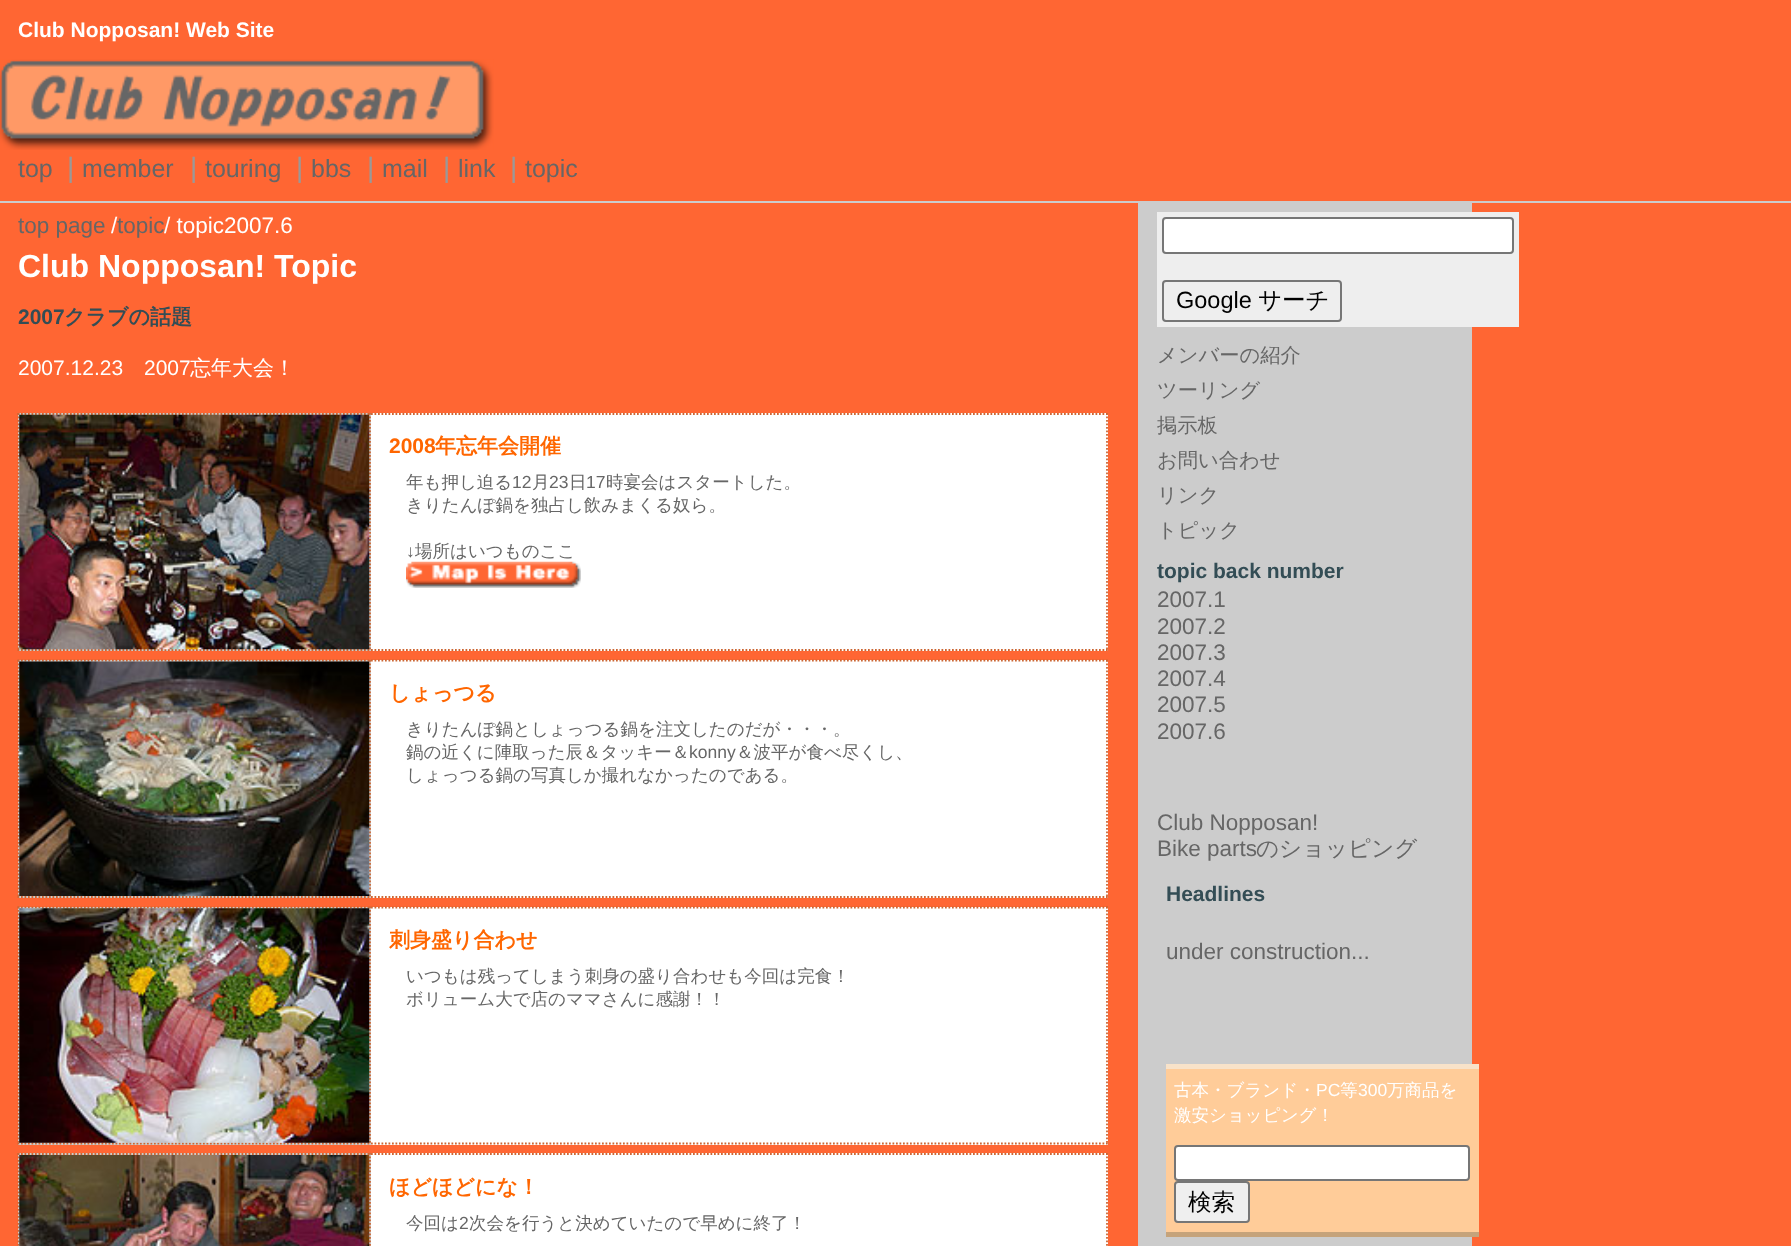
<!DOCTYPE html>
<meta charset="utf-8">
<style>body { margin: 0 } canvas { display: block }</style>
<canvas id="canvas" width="1791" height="1246"></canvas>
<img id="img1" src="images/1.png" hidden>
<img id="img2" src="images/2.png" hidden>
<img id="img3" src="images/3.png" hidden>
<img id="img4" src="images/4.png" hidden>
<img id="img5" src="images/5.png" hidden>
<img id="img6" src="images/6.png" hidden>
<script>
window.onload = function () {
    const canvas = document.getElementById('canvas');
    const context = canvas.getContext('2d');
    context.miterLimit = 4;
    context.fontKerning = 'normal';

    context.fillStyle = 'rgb(255, 102, 51)';
    context.fillRect(0, 0, 1791, 1246);
    context.fillStyle = 'rgb(204, 204, 204)';
    context.fillRect(0, 201, 1791, 2);
    context.drawImage(document.getElementById('img1'), 0, 59, 494, 91);
    context.fillRect(18, 413, 353, 238);
    context.beginPath();
    context.moveTo(17.5, 414);
    context.lineTo(371, 414);
    context.strokeStyle = 'rgb(204, 102, 51)';
    context.lineWidth = 1.8;
    context.setLineDash([1.75, 1.75]);
    context.stroke();
    context.beginPath();
    context.moveTo(370, 413);
    context.lineTo(370, 651);
    context.stroke();
    context.beginPath();
    context.moveTo(17.5, 650);
    context.lineTo(371, 650);
    context.stroke();
    context.beginPath();
    context.moveTo(18.5, 413);
    context.lineTo(18.5, 651);
    context.stroke();
    context.drawImage(document.getElementById('img2'), 19, 414, 351, 236);
    context.fillStyle = 'rgb(255, 255, 255)';
    context.fillRect(371, 413, 737, 238);
    context.beginPath();
    context.moveTo(371, 414);
    context.lineTo(1108, 414);
    context.stroke();
    context.beginPath();
    context.moveTo(1107, 413);
    context.lineTo(1107, 651);
    context.stroke();
    context.beginPath();
    context.moveTo(371, 650);
    context.lineTo(1108, 650);
    context.stroke();
    context.drawImage(document.getElementById('img3'), 406, 561, 175, 27);
    context.fillStyle = 'rgb(204, 204, 204)';
    context.fillRect(18, 660, 353, 238);
    context.beginPath();
    context.moveTo(17.5, 660.5);
    context.lineTo(371, 660.5);
    context.stroke();
    context.beginPath();
    context.moveTo(370, 660);
    context.lineTo(370, 898);
    context.stroke();
    context.beginPath();
    context.moveTo(17.5, 897);
    context.lineTo(371, 897);
    context.stroke();
    context.beginPath();
    context.moveTo(18.5, 660);
    context.lineTo(18.5, 898);
    context.stroke();
    context.drawImage(document.getElementById('img4'), 19, 661, 351, 235);
    context.fillStyle = 'rgb(255, 255, 255)';
    context.fillRect(371, 660, 737, 238);
    context.beginPath();
    context.moveTo(371, 660.5);
    context.lineTo(1108, 660.5);
    context.stroke();
    context.beginPath();
    context.moveTo(1107, 660);
    context.lineTo(1107, 898);
    context.stroke();
    context.beginPath();
    context.moveTo(371, 897);
    context.lineTo(1108, 897);
    context.stroke();
    context.fillStyle = 'rgb(204, 204, 204)';
    context.fillRect(18, 907, 353, 238);
    context.beginPath();
    context.moveTo(17.5, 907.5);
    context.lineTo(371, 907.5);
    context.stroke();
    context.beginPath();
    context.moveTo(370, 906.5);
    context.lineTo(370, 1144.5);
    context.stroke();
    context.beginPath();
    context.moveTo(17.5, 1143.5);
    context.lineTo(371, 1143.5);
    context.stroke();
    context.beginPath();
    context.moveTo(18.5, 906.5);
    context.lineTo(18.5, 1144.5);
    context.stroke();
    context.drawImage(document.getElementById('img5'), 19, 908, 351, 235);
    context.fillStyle = 'rgb(255, 255, 255)';
    context.fillRect(371, 907, 737, 238);
    context.beginPath();
    context.moveTo(371, 907.5);
    context.lineTo(1108, 907.5);
    context.stroke();
    context.beginPath();
    context.moveTo(1107, 906.5);
    context.lineTo(1107, 1144.5);
    context.stroke();
    context.beginPath();
    context.moveTo(371, 1143.5);
    context.lineTo(1108, 1143.5);
    context.stroke();
    context.fillStyle = 'rgb(204, 204, 204)';
    context.fillRect(18, 1153, 353, 93);
    context.beginPath();
    context.moveTo(17.5, 1154);
    context.lineTo(371, 1154);
    context.stroke();
    context.beginPath();
    context.moveTo(370, 1153);
    context.lineTo(370, 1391);
    context.stroke();
    context.beginPath();
    context.moveTo(18.5, 1153);
    context.lineTo(18.5, 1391);
    context.stroke();
    context.drawImage(document.getElementById('img6'), 19, 1155, 351, 91);
    context.fillStyle = 'rgb(255, 255, 255)';
    context.fillRect(371, 1153, 737, 93);
    context.beginPath();
    context.moveTo(371, 1154);
    context.lineTo(1108, 1154);
    context.stroke();
    context.beginPath();
    context.moveTo(1107, 1153);
    context.lineTo(1107, 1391);
    context.stroke();
    context.fillStyle = 'rgb(204, 204, 204)';
    context.fillRect(1138, 203, 334, 1043);
    context.fillStyle = 'rgb(238, 238, 238)';
    context.fillRect(1157, 212, 362, 115);
    context.fillStyle = 'rgb(255, 255, 255)';
    context.beginPath();
    context.roundRect(1163, 218, 350, 35, 3);
    context.fill();
    context.strokeStyle = 'rgb(118, 118, 118)';
    context.lineWidth = 2;
    context.setLineDash([]);
    context.stroke();
    context.beginPath();
    context.roundRect(1163, 281, 178, 40, 3);
    context.stroke();
    context.fillStyle = 'rgb(248, 226, 201)';
    context.fillRect(1166, 1064, 313, 5);
    context.fillStyle = 'rgb(255, 204, 153)';
    context.fillRect(1166, 1069, 313, 163);
    context.fillStyle = 'rgb(255, 255, 255)';
    context.beginPath();
    context.roundRect(1175, 1146, 294, 34, 3);
    context.fill();
    context.stroke();
    context.fillStyle = 'rgb(239, 239, 239)';
    context.beginPath();
    context.roundRect(1175, 1182, 74, 40, 3);
    context.fill();
    context.stroke();
    context.fillStyle = 'rgb(197, 163, 123)';
    context.fillRect(1166, 1232, 313, 5);
    context.font = 'bold 21px Liberation Sans';
    context.fillStyle = 'rgb(255, 255, 255)';
    context.fillText('Club Nopposan! Web Site', 18, 37);
    context.font = '25px Liberation Sans';
    context.fillStyle = 'rgb(102, 102, 102)';
    context.fillText('top', 18, 177);
    context.font = '28px Liberation Sans';
    context.fillStyle = 'rgb(153, 153, 153)';
    context.fillText('|', 67, 177);
    context.font = '25px Liberation Sans';
    context.fillStyle = 'rgb(102, 102, 102)';
    context.fillText('member', 82, 177);
    context.font = '28px Liberation Sans';
    context.fillStyle = 'rgb(153, 153, 153)';
    context.fillText('|', 190, 177);
    context.font = '25px Liberation Sans';
    context.fillStyle = 'rgb(102, 102, 102)';
    context.fillText('touring', 205, 177);
    context.font = '28px Liberation Sans';
    context.fillStyle = 'rgb(153, 153, 153)';
    context.fillText('|', 296, 177);
    context.font = '25px Liberation Sans';
    context.fillStyle = 'rgb(102, 102, 102)';
    context.fillText('bbs', 311, 177);
    context.font = '28px Liberation Sans';
    context.fillStyle = 'rgb(153, 153, 153)';
    context.fillText('|', 367, 177);
    context.font = '25px Liberation Sans';
    context.fillStyle = 'rgb(102, 102, 102)';
    context.fillText('mail', 382, 177);
    context.font = '28px Liberation Sans';
    context.fillStyle = 'rgb(153, 153, 153)';
    context.fillText('|', 443, 177);
    context.font = '25px Liberation Sans';
    context.fillStyle = 'rgb(102, 102, 102)';
    context.fillText('link', 458, 177);
    context.font = '28px Liberation Sans';
    context.fillStyle = 'rgb(153, 153, 153)';
    context.fillText('|', 510, 177);
    context.font = '25px Liberation Sans';
    context.fillStyle = 'rgb(102, 102, 102)';
    context.fillText('topic', 525, 177);
    context.font = '22.5px Liberation Sans';
    context.fillText('top page', 18, 233);
    context.fillStyle = 'rgb(255, 255, 255)';
    context.fillText('/', 111, 233);
    context.fillStyle = 'rgb(102, 102, 102)';
    context.fillText('topic', 117, 233);
    context.fillStyle = 'rgb(255, 255, 255)';
    context.fillText('/ topic2007.6', 164, 233);
    context.font = 'bold 32px Liberation Sans';
    context.fillText('Club Nopposan! Topic', 18, 277);
    context.font = 'bold 21px Liberation Sans';
    context.fillStyle = 'rgb(51, 77, 85)';
    context.fillText('2007', 18, 324);
    context.font = 'bold 21px WenQuanYi Zen Hei';
    context.fillText('クラブの話題', 64, 324);
    context.font = '21px Liberation Sans';
    context.fillStyle = 'rgb(255, 255, 255)';
    context.fillText('2007.12.23', 18, 375);
    context.fillText('2007', 144, 375);
    context.font = '500 21px WenQuanYi Zen Hei';
    context.fillText('忘年大会！', 190, 375);
    context.font = 'bold 21px Liberation Sans';
    context.fillStyle = 'rgb(255, 102, 0)';
    context.fillText('2008', 389, 453);
    context.font = 'bold 21px WenQuanYi Zen Hei';
    context.fillText('年忘年会開催', 435, 453);
    context.font = '500 17.5px WenQuanYi Zen Hei';
    context.fillStyle = 'rgb(102, 102, 102)';
    context.fillText('年も押し迫る', 406, 488);
    context.font = '17.5px Liberation Sans';
    context.fillText('12', 512, 488);
    context.font = '500 17.5px WenQuanYi Zen Hei';
    context.fillText('月', 532, 488);
    context.font = '17.5px Liberation Sans';
    context.fillText('23', 549, 488);
    context.font = '500 17.5px WenQuanYi Zen Hei';
    context.fillText('日', 569, 488);
    context.font = '17.5px Liberation Sans';
    context.fillText('17', 586, 488);
    context.font = '500 17.5px WenQuanYi Zen Hei';
    context.fillText('時宴会はスタートした。', 606, 488);
    context.fillText('きりたんぽ鍋を独占し飲みまくる奴ら。', 406, 511);
    context.font = '17.5px Liberation Sans';
    context.fillText('↓', 406, 557);
    context.font = '500 17.5px WenQuanYi Zen Hei';
    context.fillText('場所はいつものここ', 415, 557);
    context.font = 'bold 21px WenQuanYi Zen Hei';
    context.fillStyle = 'rgb(255, 102, 0)';
    context.fillText('しょっつる', 389, 700);
    context.font = '500 17.5px WenQuanYi Zen Hei';
    context.fillStyle = 'rgb(102, 102, 102)';
    context.fillText('きりたんぽ鍋としょっつる鍋を注文したのだが・・・。', 406, 735);
    context.fillText('鍋の近くに陣取った辰＆タッキー＆', 406, 758);
    context.font = '17.5px Liberation Sans';
    context.fillText('konny', 689, 758);
    context.font = '500 17.5px WenQuanYi Zen Hei';
    context.fillText('＆波平が食べ尽くし、', 736, 758);
    context.fillText('しょっつる鍋の写真しか撮れなかったのである。', 406, 781);
    context.font = 'bold 21px WenQuanYi Zen Hei';
    context.fillStyle = 'rgb(255, 102, 0)';
    context.fillText('刺身盛り合わせ', 389, 947);
    context.font = '500 17.5px WenQuanYi Zen Hei';
    context.fillStyle = 'rgb(102, 102, 102)';
    context.fillText('いつもは残ってしまう刺身の盛り合わせも今回は完食！', 406, 982);
    context.fillText('ボリューム大で店のママさんに感謝！！', 406, 1005);
    context.font = 'bold 21px WenQuanYi Zen Hei';
    context.fillStyle = 'rgb(255, 102, 0)';
    context.fillText('ほどほどにな！', 389, 1194);
    context.font = '500 17.5px WenQuanYi Zen Hei';
    context.fillStyle = 'rgb(102, 102, 102)';
    context.fillText('今回は', 406, 1229);
    context.font = '17.5px Liberation Sans';
    context.fillText('2', 459, 1229);
    context.font = '500 17.5px WenQuanYi Zen Hei';
    context.fillText('次会を行うと決めていたので早めに終了！', 469, 1229);
    context.font = '23.5px Liberation Sans';
    context.fillStyle = 'rgb(0, 0, 0)';
    context.fillText('Google', 1176, 308);
    context.font = '500 23.5px WenQuanYi Zen Hei';
    context.fillText('サーチ', 1258, 308);
    context.font = '500 20.25px WenQuanYi Zen Hei';
    context.fillStyle = 'rgb(102, 102, 102)';
    context.fillText('メンバーの紹介', 1157, 362);
    context.fillText('ツーリング', 1157, 397);
    context.fillText('掲示板', 1157, 432);
    context.fillText('お問い合わせ', 1157, 467);
    context.fillText('リンク', 1157, 502);
    context.fillText('トピック', 1157, 537);
    context.font = 'bold 21px Liberation Sans';
    context.fillStyle = 'rgb(51, 77, 85)';
    context.fillText('topic back number', 1157, 578);
    context.font = '22.5px Liberation Sans';
    context.fillStyle = 'rgb(102, 102, 102)';
    context.fillText('2007.1', 1157, 607);
    context.fillText('2007.2', 1157, 634);
    context.fillText('2007.3', 1157, 660);
    context.fillText('2007.4', 1157, 686);
    context.fillText('2007.5', 1157, 712);
    context.fillText('2007.6', 1157, 739);
    context.fillText('Club Nopposan!', 1157, 830);
    context.fillText('Bike parts', 1157, 856);
    context.font = '500 22.5px WenQuanYi Zen Hei';
    context.fillText('のショッピング', 1256, 856);
    context.font = 'bold 21px Liberation Sans';
    context.fillStyle = 'rgb(51, 77, 85)';
    context.fillText('Headlines', 1166, 901);
    context.font = '22.5px Liberation Sans';
    context.fillStyle = 'rgb(102, 102, 102)';
    context.fillText('under construction...', 1166, 959);
    context.font = '500 17.5px WenQuanYi Zen Hei';
    context.fillStyle = 'rgb(255, 255, 255)';
    context.fillText('古本・ブランド・', 1174, 1096);
    context.font = '17.5px Liberation Sans';
    context.fillText('PC', 1316, 1096);
    context.font = '500 17.5px WenQuanYi Zen Hei';
    context.fillText('等', 1340, 1096);
    context.font = '17.5px Liberation Sans';
    context.fillText('300', 1358, 1096);
    context.font = '500 17.5px WenQuanYi Zen Hei';
    context.fillText('万商品を', 1387, 1096);
    context.fillText('激安ショッピング！', 1174, 1121);
    context.font = '500 23.5px WenQuanYi Zen Hei';
    context.fillStyle = 'rgb(0, 0, 0)';
    context.fillText('検索', 1188, 1210);
};
</script>
